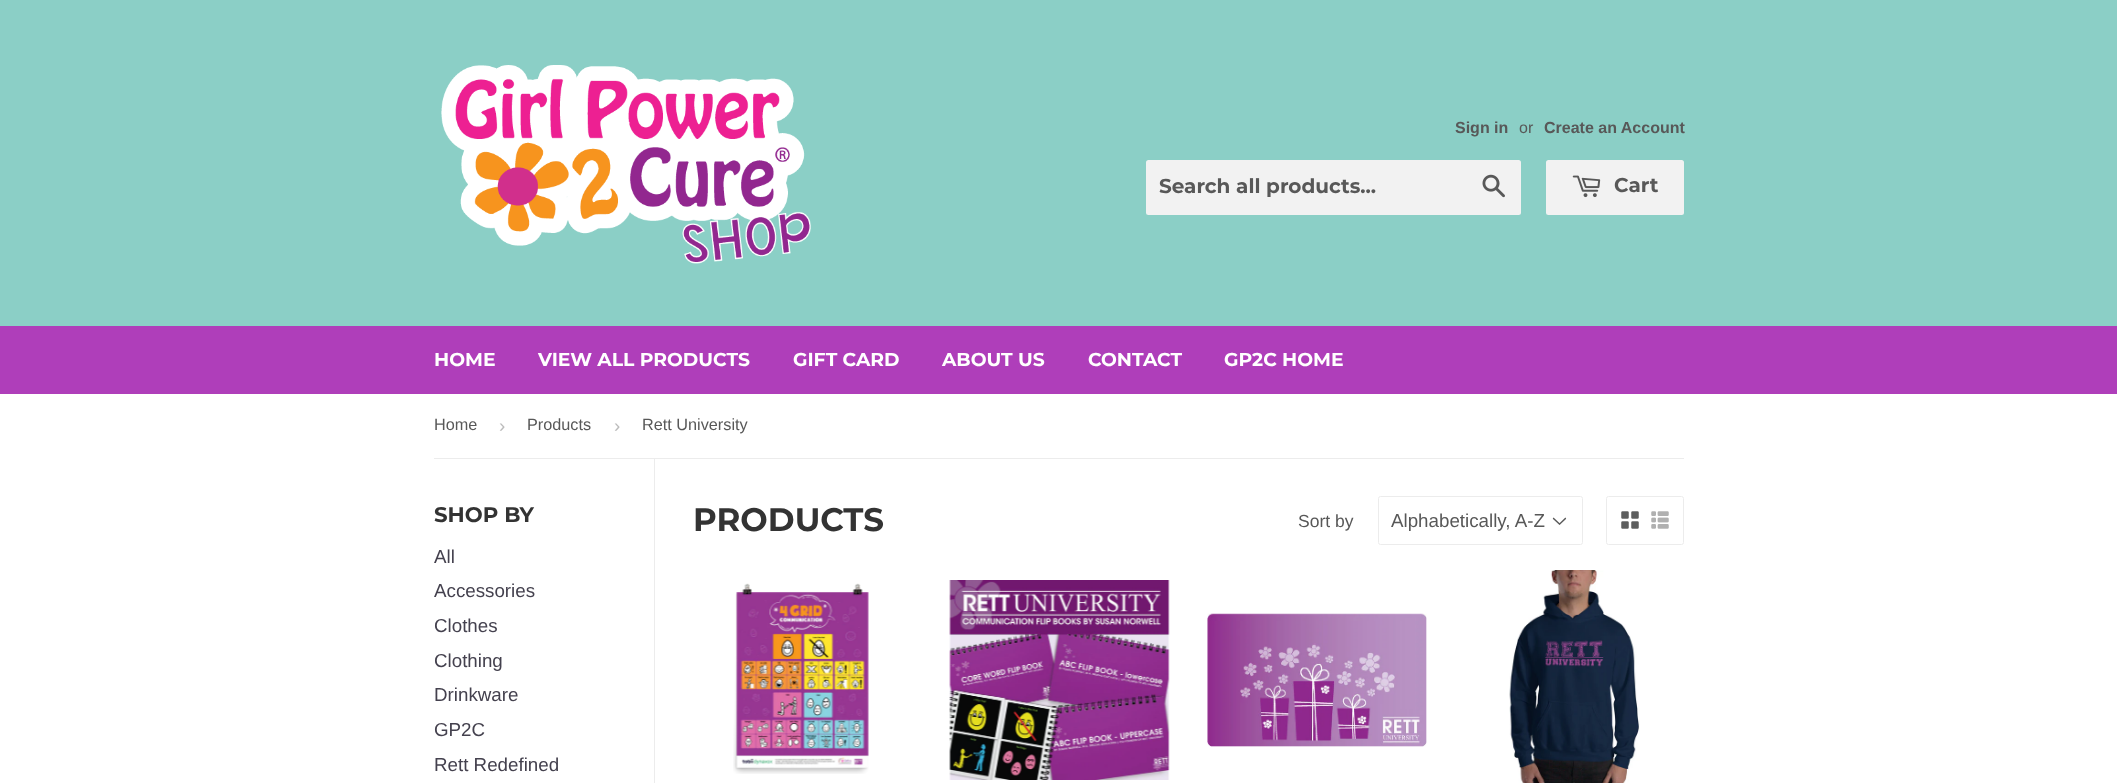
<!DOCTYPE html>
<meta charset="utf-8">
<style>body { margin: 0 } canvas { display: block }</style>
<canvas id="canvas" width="2117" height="783"></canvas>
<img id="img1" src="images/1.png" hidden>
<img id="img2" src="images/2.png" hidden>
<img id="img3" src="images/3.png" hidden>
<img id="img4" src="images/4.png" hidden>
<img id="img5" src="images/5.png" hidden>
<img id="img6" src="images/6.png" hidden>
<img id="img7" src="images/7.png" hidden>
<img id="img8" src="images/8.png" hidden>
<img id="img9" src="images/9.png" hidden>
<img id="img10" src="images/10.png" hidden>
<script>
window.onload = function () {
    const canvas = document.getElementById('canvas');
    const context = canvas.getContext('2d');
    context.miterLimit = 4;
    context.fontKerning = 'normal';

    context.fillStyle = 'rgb(255, 255, 255)';
    context.fillRect(0, 0, 2117, 783);
    context.fillStyle = 'rgb(139, 207, 198)';
    context.fillRect(0, 0, 2117, 326);
    context.drawImage(document.getElementById('img1'), 441, 65, 370, 199);
    context.fillStyle = 'rgb(242, 242, 242)';
    context.beginPath();
    context.roundRect(1146, 160, 375, 55, 2.5);
    context.fill();
    context.drawImage(document.getElementById('img2'), 1482, 174, 23, 24);
    context.beginPath();
    context.roundRect(1546, 160, 138, 55, 2.5);
    context.fill();
    context.drawImage(document.getElementById('img3'), 1572, 175, 29, 23);
    context.fillStyle = 'rgb(175, 62, 186)';
    context.fillRect(0, 326, 2117, 68);
    context.fillStyle = 'rgb(236, 236, 236)';
    context.fillRect(434, 458, 1250, 1);
    context.fillRect(654, 459, 1, 324);
    context.drawImage(document.getElementById('img4'), 1552, 517, 15, 8);
    context.beginPath();
    context.roundRect(1378.5, 496.5, 204, 48, 2);
    context.strokeStyle = 'rgb(236, 236, 236)';
    context.stroke();
    context.beginPath();
    context.roundRect(1606.5, 496.5, 77, 48, 2);
    context.stroke();
    context.drawImage(document.getElementById('img5'), 1621, 511, 18, 18);
    context.drawImage(document.getElementById('img6'), 1651, 511, 18, 18);
    context.drawImage(document.getElementById('img7'), 733, 583, 136, 191);
    context.drawImage(document.getElementById('img8'), 949, 580, 221, 200);
    context.drawImage(document.getElementById('img9'), 1207, 613, 220, 134);
    context.drawImage(document.getElementById('img10'), 1509, 570, 131, 213);
    context.font = 'bold 16px Liberation Sans';
    context.fillStyle = 'rgb(88, 88, 88)';
    context.fillText('Sign in', 1455, 133);
    context.font = '16px Liberation Sans';
    context.fillText('or', 1519, 133);
    context.font = 'bold 16px Liberation Sans';
    context.fillText('Create an Account', 1544, 133);
    context.font = '100 20px Montserrat';
    context.fillText('Search all products...', 1159, 193);
    context.fillText('Cart', 1614, 192);
    context.font = '100 18.75px Montserrat';
    context.fillStyle = 'rgb(255, 255, 255)';
    context.fillText('HOME', 434, 366);
    context.fillText('VIEW ALL PRODUCTS', 538, 366);
    context.fillText('GIFT CARD', 793, 366);
    context.fillText('ABOUT US', 942, 366);
    context.fillText('CONTACT', 1088, 366);
    context.fillText('GP2C HOME', 1224, 366);
    context.font = '16.25px Liberation Sans';
    context.fillStyle = 'rgb(88, 88, 88)';
    context.fillText('Home', 434, 430);
    context.font = '18.75px Liberation Sans';
    context.fillStyle = 'rgb(187, 187, 187)';
    context.fillText('›', 499, 432);
    context.font = '16.25px Liberation Sans';
    context.fillStyle = 'rgb(88, 88, 88)';
    context.fillText('Products', 527, 430);
    context.font = '18.75px Liberation Sans';
    context.fillStyle = 'rgb(187, 187, 187)';
    context.fillText('›', 614, 432);
    context.font = '16.25px Liberation Sans';
    context.fillStyle = 'rgb(88, 88, 88)';
    context.fillText('Rett University', 642, 430);
    context.font = '100 21.25px Montserrat';
    context.fillStyle = 'rgb(51, 51, 51)';
    context.fillText('SHOP BY', 434, 522);
    context.font = '18.75px Liberation Sans';
    context.fillStyle = 'rgb(68, 65, 78)';
    context.fillText('All', 434, 563);
    context.fillText('Accessories', 434, 597);
    context.fillText('Clothes', 434, 632);
    context.fillText('Clothing', 434, 667);
    context.fillText('Drinkware', 434, 701);
    context.fillText('GP2C', 434, 736);
    context.fillText('Rett Redefined', 434, 771);
    context.font = '100 32.5px Montserrat';
    context.fillStyle = 'rgb(51, 51, 51)';
    context.fillText('PRODUCTS', 693, 531);
    context.font = '17.5px Liberation Sans';
    context.fillStyle = 'rgb(88, 88, 88)';
    context.fillText('Sort by', 1298, 527);
    context.font = '18.75px Liberation Sans';
    context.fillText('Alphabetically, A-Z', 1391, 527);
};
</script>
